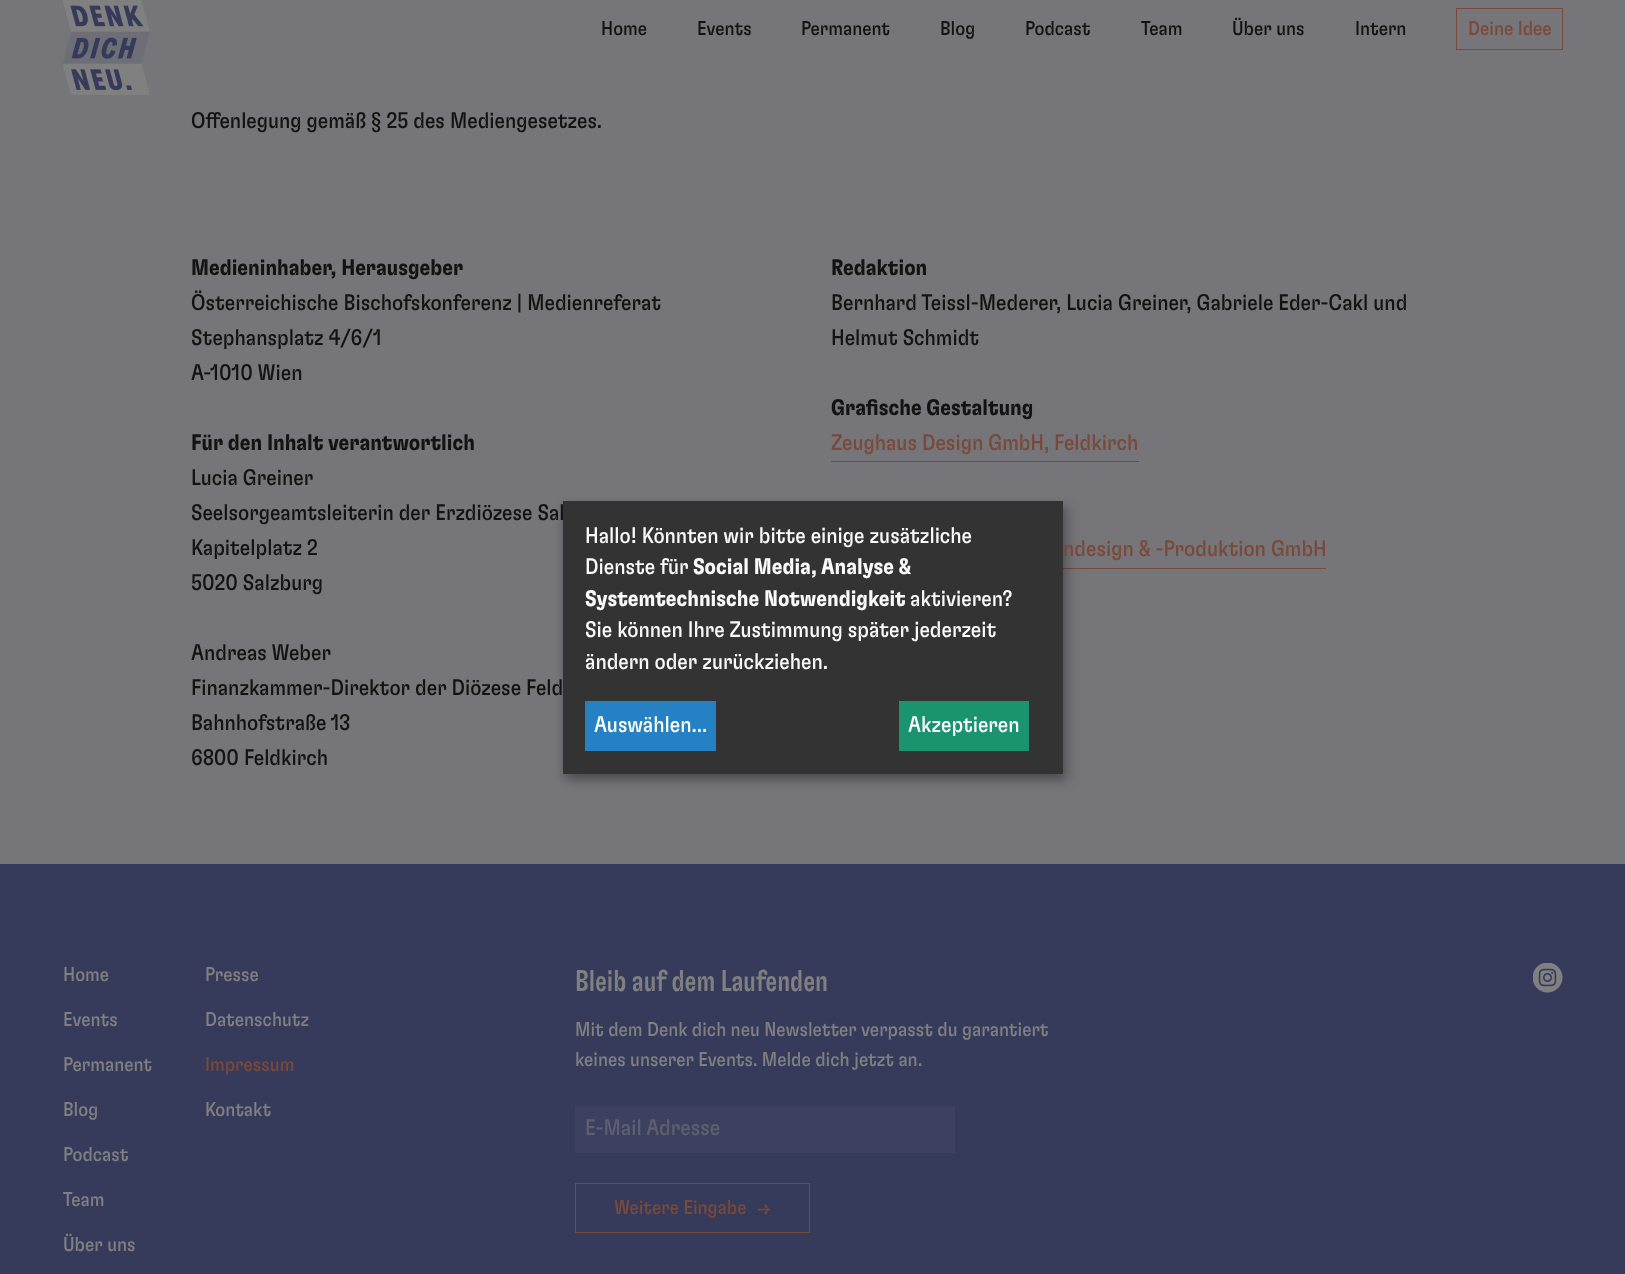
<!DOCTYPE html>
<meta charset="utf-8">
<style>body { margin: 0 } canvas { display: block }</style>
<canvas id="canvas" width="1625" height="1274"></canvas>
<img id="img1" src="images/1.png" hidden>
<img id="img2" src="images/2.png" hidden>
<img id="img3" src="images/3.png" hidden>
<script>
window.onload = function () {
    const canvas = document.getElementById('canvas');
    const context = canvas.getContext('2d');
    context.miterLimit = 4;
    context.fontKerning = 'normal';

    context.fillStyle = 'rgb(118, 118, 122)';
    context.fillRect(0, 0, 1625, 1274);
    context.drawImage(document.getElementById('img1'), 63, 0, 87, 95);
    context.strokeStyle = 'rgb(121, 73, 58)';
    context.strokeRect(1456.5, 8.5, 106, 41);
    context.fillStyle = 'rgb(121, 73, 58)';
    context.fillRect(831, 461, 308, 1);
    context.fillRect(1063, 568, 263, 1);
    context.fillStyle = 'rgb(54, 58, 91)';
    context.fillRect(0, 864, 1625, 410);
    context.fillStyle = 'rgb(61, 65, 95)';
    context.fillRect(575, 1106, 380, 47);
    context.strokeRect(575.5, 1183.5, 234, 49);
    context.drawImage(document.getElementById('img2'), 758, 1205, 13, 9);
    context.drawImage(document.getElementById('img3'), 1533, 963, 30, 30);
    context.fillStyle = 'rgba(0, 0, 0, 0.19)';
    context.filter = 'blur(6px)';
    context.beginPath();
    context.rect(569, 508, 500, 272);
    context.fill();
    context.filter = 'none';
    context.fillStyle = 'rgba(0, 0, 0, 0.2)';
    context.filter = 'blur(4px)';
    context.beginPath();
    context.rect(563, 506, 500, 273);
    context.fill();
    context.filter = 'none';
    context.fillStyle = 'rgb(51, 51, 51)';
    context.fillRect(563, 501, 500, 273);
    context.fillStyle = 'rgb(37, 129, 196)';
    context.fillRect(585, 701, 131, 50);
    context.fillStyle = 'rgb(26, 147, 111)';
    context.fillRect(899, 701, 130, 50);
    context.font = '20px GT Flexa';
    context.fillStyle = 'rgb(19, 19, 19)';
    context.fillText('Home', 601, 35);
    context.fillText('Events', 697, 35);
    context.fillText('Permanent', 801, 35);
    context.fillText('Blog', 940, 35);
    context.fillText('Podcast', 1025, 35);
    context.fillText('Team', 1141, 35);
    context.fillText('Über uns', 1232, 35);
    context.fillText('Intern', 1355, 35);
    context.fillStyle = 'rgb(121, 73, 58)';
    context.fillText('Deine Idee', 1468, 35);
    context.font = '22.5px GT Flexa';
    context.fillStyle = 'rgb(19, 19, 19)';
    context.fillText('Offenlegung gemäß § 25 des Mediengesetzes.', 191, 128);
    context.font = 'bold 22.5px GT Flexa';
    context.fillText('Medieninhaber, Herausgeber', 191, 275);
    context.font = '22.5px GT Flexa';
    context.fillText('Österreichische Bischofskonferenz | Medienreferat', 191, 310);
    context.fillText('Stephansplatz 4/6/1', 191, 345);
    context.fillText('A-1010 Wien', 191, 380);
    context.font = 'bold 22.5px GT Flexa';
    context.fillText('Für den Inhalt verantwortlich', 191, 450);
    context.font = '22.5px GT Flexa';
    context.fillText('Lucia Greiner', 191, 485);
    context.fillText('Seelsorgeamtsleiterin der Erzdiözese Sal', 191, 520);
    context.fillText('Kapitelplatz 2', 191, 555);
    context.fillText('5020 Salzburg', 191, 590);
    context.fillText('Andreas Weber', 191, 660);
    context.fillText('Finanzkammer-Direktor der Diözese Feld', 191, 695);
    context.fillText('Bahnhofstraße 13', 191, 730);
    context.fillText('6800 Feldkirch', 191, 765);
    context.font = 'bold 22.5px GT Flexa';
    context.fillText('Redaktion', 831, 275);
    context.font = '22.5px GT Flexa';
    context.fillText('Bernhard Teissl-Mederer, Lucia Greiner, Gabriele Eder-Cakl und', 831, 310);
    context.fillText('Helmut Schmidt', 831, 345);
    context.font = 'bold 22.5px GT Flexa';
    context.fillText('Grafische Gestaltung', 831, 415);
    context.font = '22.5px GT Flexa';
    context.fillStyle = 'rgb(121, 73, 58)';
    context.fillText('Zeughaus Design GmbH, Feldkirch', 831, 450);
    context.fillText('ndesign & -Produktion GmbH', 1063, 556);
    context.font = '20px GT Flexa';
    context.fillStyle = 'rgb(128, 128, 128)';
    context.fillText('Home', 63, 981);
    context.fillText('Events', 63, 1026);
    context.fillText('Permanent', 63, 1071);
    context.fillText('Blog', 63, 1116);
    context.fillText('Podcast', 63, 1161);
    context.fillText('Team', 63, 1206);
    context.fillText('Über uns', 63, 1251);
    context.fillText('Presse', 205, 981);
    context.fillText('Datenschutz', 205, 1026);
    context.fillStyle = 'rgb(121, 73, 58)';
    context.fillText('Impressum', 205, 1071);
    context.fillStyle = 'rgb(128, 128, 128)';
    context.fillText('Kontakt', 205, 1116);
    context.font = '500 30px GT Flexa';
    context.fillText('Bleib auf dem Laufenden', 575, 991);
    context.font = '20px GT Flexa';
    context.fillText('Mit dem Denk dich neu Newsletter verpasst du garantiert', 575, 1036);
    context.fillText('keines unserer Events. Melde dich jetzt an.', 575, 1066);
    context.font = '22.5px GT Flexa';
    context.fillStyle = 'rgb(94, 96, 111)';
    context.fillText('E-Mail Adresse', 585, 1135);
    context.font = '20px GT Flexa';
    context.fillStyle = 'rgb(121, 73, 58)';
    context.fillText('Weitere Eingabe', 614, 1214);
    context.font = '22.5px GT Flexa';
    context.fillStyle = 'rgb(250, 250, 250)';
    context.fillText('Hallo! Könnten wir bitte einige zusätzliche', 585, 543);
    context.fillText('Dienste für', 585, 574);
    context.font = 'bold 22.5px GT Flexa';
    context.fillText('Social Media, Analyse &', 693, 574);
    context.fillText('Systemtechnische Notwendigkeit', 585, 606);
    context.font = '22.5px GT Flexa';
    context.fillText('aktivieren?', 910, 606);
    context.fillText('Sie können Ihre Zustimmung später jederzeit', 585, 637);
    context.fillText('ändern oder zurückziehen.', 585, 669);
    context.fillText('Auswählen...', 594, 732);
    context.fillText('Akzeptieren', 908, 732);
};
</script>
